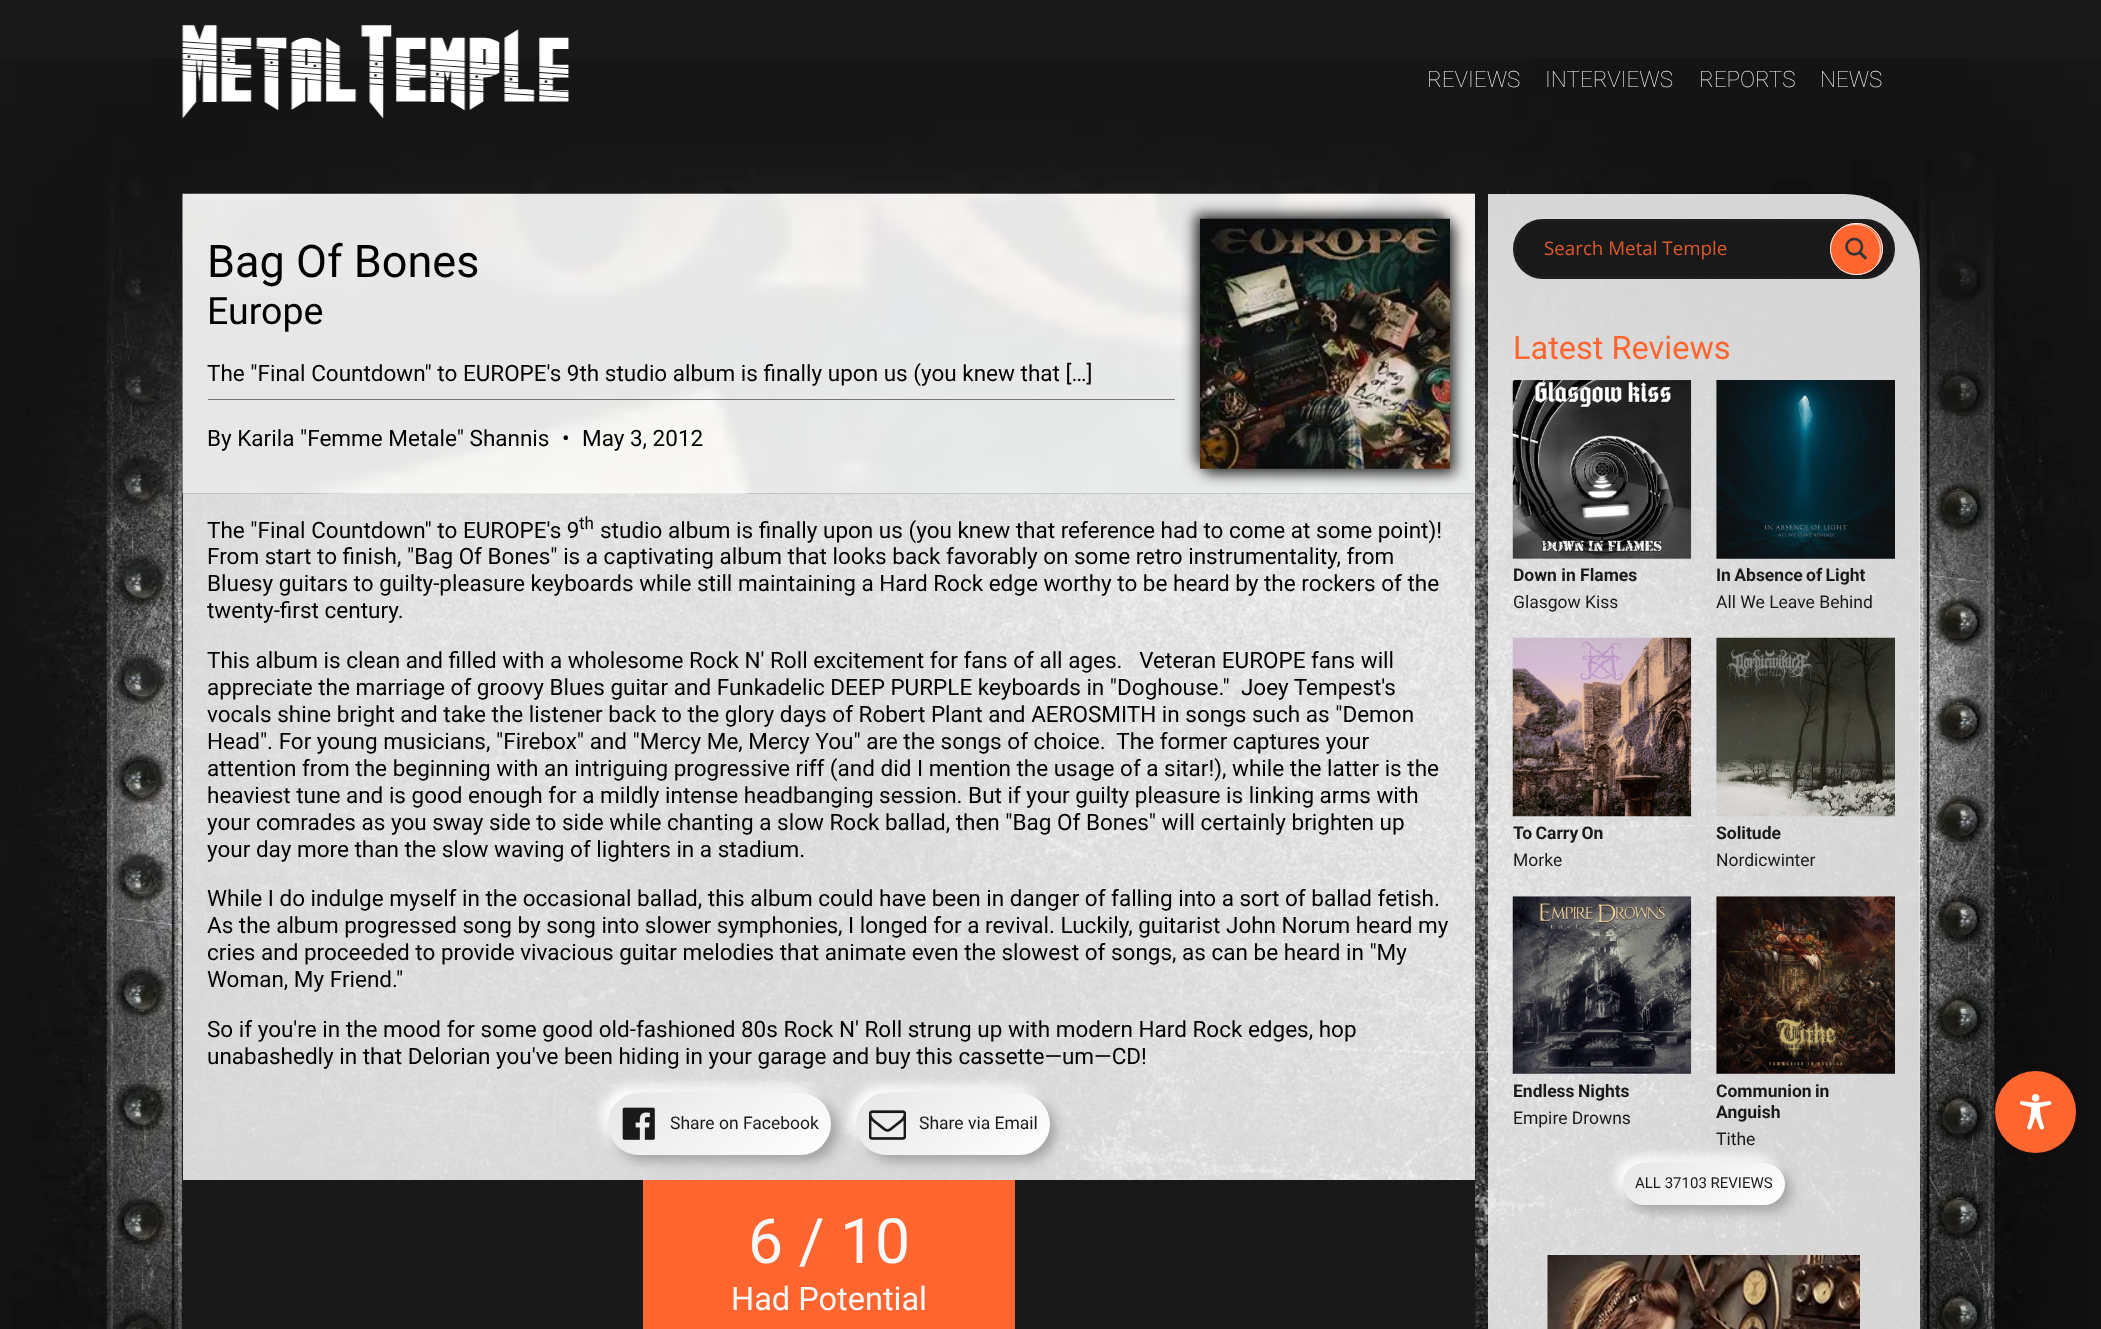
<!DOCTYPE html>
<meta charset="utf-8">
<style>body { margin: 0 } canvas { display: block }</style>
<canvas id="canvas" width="2101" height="1329"></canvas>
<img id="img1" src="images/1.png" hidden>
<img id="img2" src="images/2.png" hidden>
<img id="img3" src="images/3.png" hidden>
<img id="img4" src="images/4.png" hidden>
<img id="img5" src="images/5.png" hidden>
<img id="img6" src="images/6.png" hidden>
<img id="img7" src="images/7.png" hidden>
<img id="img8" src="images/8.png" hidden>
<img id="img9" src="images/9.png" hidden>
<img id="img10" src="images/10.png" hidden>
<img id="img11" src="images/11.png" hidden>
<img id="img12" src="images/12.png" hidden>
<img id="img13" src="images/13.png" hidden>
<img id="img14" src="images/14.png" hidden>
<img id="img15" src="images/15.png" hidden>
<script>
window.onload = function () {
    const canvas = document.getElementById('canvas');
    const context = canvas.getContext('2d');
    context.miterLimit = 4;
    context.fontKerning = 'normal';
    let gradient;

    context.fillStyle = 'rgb(25, 25, 25)';
    context.fillRect(0, 0, 2101, 1329);
    context.drawImage(document.getElementById('img1'), 0, 59, 2101, 1270);
    context.drawImage(document.getElementById('img2'), 182, 25, 387, 94);
    context.fillStyle = 'rgba(249, 249, 250, 0.85)';
    context.fillRect(183, 493, 1292, 687);
    context.drawImage(document.getElementById('img3'), 182, 193, 1293, 301);
    context.fillStyle = 'rgb(116, 116, 116)';
    context.fillRect(208, 399, 967, 1);
    context.fillStyle = 'rgb(62, 62, 62)';
    context.filter = 'blur(7px)';
    context.beginPath();
    context.rect(1195, 214, 250, 250);
    context.fill();
    context.filter = 'none';
    context.fillStyle = 'rgb(56, 56, 56)';
    context.filter = 'blur(7px)';
    context.beginPath();
    context.rect(1205, 224, 250, 250);
    context.fill();
    context.filter = 'none';
    context.drawImage(document.getElementById('img4'), 1200, 218, 250, 251);
    context.fillStyle = 'rgb(255, 255, 255)';
    context.filter = 'blur(6px)';
    context.beginPath();
    context.roundRect(601, 1086, 224, 63, 31.5);
    context.fill();
    context.filter = 'none';
    context.fillStyle = 'rgb(163, 163, 163)';
    context.filter = 'blur(6px)';
    context.beginPath();
    context.roundRect(614, 1099, 224, 62, 31);
    context.fill();
    context.filter = 'none';
    gradient = context.createLinearGradient(668, 1050, 771, 1197);
    gradient.addColorStop(0, 'rgb(230, 230, 230)');
    gradient.addColorStop(1, 'rgb(255, 255, 255)');
    context.fillStyle = gradient;
    context.beginPath();
    context.roundRect(608, 1093, 223, 62, 31);
    context.fill();
    context.drawImage(document.getElementById('img5'), 622, 1107, 33, 33);
    context.fillStyle = 'rgb(255, 255, 255)';
    context.filter = 'blur(6px)';
    context.beginPath();
    context.roundRect(850, 1086, 194, 63, 31.5);
    context.fill();
    context.filter = 'none';
    context.fillStyle = 'rgb(163, 163, 163)';
    context.filter = 'blur(6px)';
    context.beginPath();
    context.roundRect(863, 1099, 193, 62, 31);
    context.fill();
    context.filter = 'none';
    gradient = context.createLinearGradient(907, 1057, 1000, 1190);
    gradient.addColorStop(0, 'rgb(230, 230, 230)');
    gradient.addColorStop(1, 'rgb(255, 255, 255)');
    context.fillStyle = gradient;
    context.beginPath();
    context.roundRect(856, 1093, 194, 62, 31);
    context.fill();
    context.drawImage(document.getElementById('img6'), 869, 1110, 37, 30);
    context.fillStyle = 'rgb(25, 25, 25)';
    context.fillRect(183, 1180, 1292, 149);
    context.fillStyle = 'rgb(255, 101, 47)';
    context.fillRect(643, 1180, 372, 149);
    context.fillStyle = 'rgba(249, 249, 250, 0.85)';
    context.beginPath();
    context.moveTo(1488, 194);
    context.lineTo(1845, 194);
    context.bezierCurveTo(1886.5, 194, 1920, 227.5, 1920, 269);
    context.lineTo(1920, 1329);
    context.bezierCurveTo(1920, 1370.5, 1886.5, 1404, 1845, 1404);
    context.lineTo(1488, 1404);
    context.closePath();
    context.fill();
    context.fillStyle = 'rgb(25, 25, 25)';
    context.beginPath();
    context.roundRect(1514.5, 220.5, 379, 57, 28.5);
    context.fill();
    context.strokeStyle = 'rgb(30, 30, 30)';
    context.lineWidth = 3;
    context.stroke();
    context.fillStyle = 'rgb(255, 101, 47)';
    context.beginPath();
    context.roundRect(1830, 223, 53, 52, 26);
    context.fill();
    context.fillStyle = 'rgb(255, 200, 180)';
    context.beginPath();
    context.moveTo(1855, 225);
    context.bezierCurveTo(1878, 225, 1885, 250, 1876, 265);
    context.bezierCurveTo(1893, 243, 1866, 213, 1842, 228);
    context.bezierCurveTo(1846, 226, 1850, 225, 1855, 225);
    context.closePath();
    context.fill();
    context.beginPath();
    context.roundRect(1830.5, 223.5, 52, 51, 25.5);
    context.strokeStyle = 'rgb(249, 249, 250)';
    context.lineWidth = 1;
    context.stroke();
    context.drawImage(document.getElementById('img7'), 1845, 237, 23, 23);
    context.drawImage(document.getElementById('img8'), 1512, 380, 180, 179);
    context.drawImage(document.getElementById('img9'), 1716, 380, 179, 179);
    context.drawImage(document.getElementById('img10'), 1512, 637, 180, 180);
    context.drawImage(document.getElementById('img11'), 1716, 637, 179, 180);
    context.drawImage(document.getElementById('img12'), 1512, 896, 180, 178);
    context.drawImage(document.getElementById('img13'), 1716, 896, 179, 178);
    context.fillStyle = 'rgb(255, 255, 255)';
    context.filter = 'blur(6px)';
    context.beginPath();
    context.roundRect(1616, 1156, 163, 43, 21.5);
    context.fill();
    context.filter = 'none';
    context.fillStyle = 'rgb(163, 163, 163)';
    context.filter = 'blur(6px)';
    context.beginPath();
    context.roundRect(1629, 1169, 162, 42, 21);
    context.fill();
    context.filter = 'none';
    gradient = context.createLinearGradient(1667, 1131, 1740, 1236);
    gradient.addColorStop(0, 'rgb(230, 230, 230)');
    gradient.addColorStop(1, 'rgb(255, 255, 255)');
    context.fillStyle = gradient;
    context.beginPath();
    context.roundRect(1623, 1163, 162, 42, 21);
    context.fill();
    context.drawImage(document.getElementById('img14'), 1547, 1255, 313, 74);
    context.fillStyle = 'rgb(255, 101, 47)';
    context.beginPath();
    context.roundRect(1995, 1071, 81, 82, 40.5);
    context.fill();
    context.drawImage(document.getElementById('img15'), 2020, 1094, 32, 36);
    context.font = '100 22.5px Roboto';
    context.fillStyle = 'rgb(249, 249, 250)';
    context.fillText('REVIEWS', 1427, 87);
    context.fillText('INTERVIEWS', 1545, 87);
    context.fillText('REPORTS', 1699, 87);
    context.fillText('NEWS', 1820, 87);
    context.font = '45px Roboto';
    context.fillStyle = 'rgb(0, 0, 0)';
    context.fillText('Bag Of Bones', 207, 277);
    context.font = '37.5px Roboto';
    context.fillText('Europe', 207, 324);
    context.font = '22.5px Roboto';
    context.fillText('The "Final Countdown" to EUROPE\'s 9th studio album is finally upon us (you knew that […]', 207, 381);
    context.fillText('By Karila "Femme Metale" Shannis', 207, 446);
    context.fillText('•', 562, 446);
    context.fillText('May 3, 2012', 582, 446);
    context.fillText('The "Final Countdown" to EUROPE\'s 9', 207, 538);
    context.font = '17px Roboto';
    context.fillText('th', 579, 529);
    context.font = '22.5px Roboto';
    context.fillText('studio album is finally upon us (you knew that reference had to come at some point)!', 600, 538);
    context.fillText('From start to finish, "Bag Of Bones" is a captivating album that looks back favorably on some retro instrumentality, from', 207, 564);
    context.fillText('Bluesy guitars to guilty-pleasure keyboards while still maintaining a Hard Rock edge worthy to be heard by the rockers of the', 207, 591);
    context.fillText('twenty-first century.', 207, 618);
    context.fillText('This album is clean and filled with a wholesome Rock N\' Roll excitement for fans of all ages.   Veteran EUROPE fans will', 207, 668);
    context.fillText('appreciate the marriage of groovy Blues guitar and Funkadelic DEEP PURPLE keyboards in "Doghouse."  Joey Tempest\'s', 207, 695);
    context.fillText('vocals shine bright and take the listener back to the glory days of Robert Plant and AEROSMITH in songs such as "Demon', 207, 722);
    context.fillText('Head". For young musicians, "Firebox" and "Mercy Me, Mercy You" are the songs of choice.  The former captures your', 207, 749);
    context.fillText('attention from the beginning with an intriguing progressive riff (and did I mention the usage of a sitar!), while the latter is the', 207, 776);
    context.fillText('heaviest tune and is good enough for a mildly intense headbanging session. But if your guilty pleasure is linking arms with', 207, 803);
    context.fillText('your comrades as you sway side to side while chanting a slow Rock ballad, then "Bag Of Bones" will certainly brighten up', 207, 830);
    context.fillText('your day more than the slow waving of lighters in a stadium.', 207, 857);
    context.fillText('While I do indulge myself in the occasional ballad, this album could have been in danger of falling into a sort of ballad fetish.', 207, 906);
    context.fillText('As the album progressed song by song into slower symphonies, I longed for a revival. Luckily, guitarist John Norum heard my', 207, 933);
    context.fillText('cries and proceeded to provide vivacious guitar melodies that animate even the slowest of songs, as can be heard in "My', 207, 960);
    context.fillText('Woman, My Friend."', 207, 987);
    context.fillText('So if you\'re in the mood for some good old-fashioned 80s Rock N\' Roll strung up with modern Hard Rock edges, hop', 207, 1037);
    context.fillText('unabashedly in that Delorian you\'ve been hiding in your garage and buy this cassette—um—CD!', 207, 1064);
    context.font = '17.5px Roboto';
    context.fillStyle = 'rgb(25, 25, 25)';
    context.fillText('Share on Facebook', 670, 1129);
    context.fillText('Share via Email', 919, 1129);
    context.font = '62.5px Roboto';
    context.fillStyle = 'rgb(249, 249, 250)';
    context.fillText('6 / 10', 748, 1263);
    context.font = '32.5px Roboto';
    context.fillText('Had Potential', 731, 1310);
    context.font = '18.75px Open Sans';
    context.fillStyle = 'rgb(221, 90, 44)';
    context.fillText('Search Metal Temple', 1544, 255);
    context.font = '32.5px Roboto';
    context.fillStyle = 'rgb(255, 101, 47)';
    context.fillText('Latest Reviews', 1513, 359);
    context.font = 'bold 17.5px Roboto';
    context.fillStyle = 'rgb(25, 25, 25)';
    context.fillText('Down in Flames', 1513, 581);
    context.font = '17.5px Roboto';
    context.fillText('Glasgow Kiss', 1513, 608);
    context.wordSpacing = '-1px';
    context.font = 'bold 17.5px Roboto';
    context.fillText('In Absence of Light', 1716, 581);
    context.wordSpacing = '0px';
    context.font = '17.5px Roboto';
    context.fillText('All We Leave Behind', 1716, 608);
    context.wordSpacing = '-1px';
    context.font = 'bold 17.5px Roboto';
    context.fillText('To Carry On', 1513, 839);
    context.wordSpacing = '0px';
    context.font = '17.5px Roboto';
    context.fillText('Morke', 1513, 866);
    context.font = 'bold 17.5px Roboto';
    context.fillText('Solitude', 1716, 839);
    context.font = '17.5px Roboto';
    context.fillText('Nordicwinter', 1716, 866);
    context.wordSpacing = '-1px';
    context.font = 'bold 17.5px Roboto';
    context.fillText('Endless Nights', 1513, 1097);
    context.wordSpacing = '0px';
    context.font = '17.5px Roboto';
    context.fillText('Empire Drowns', 1513, 1124);
    context.wordSpacing = '-1px';
    context.font = 'bold 17.5px Roboto';
    context.fillText('Communion in', 1716, 1097);
    context.wordSpacing = '0px';
    context.fillText('Anguish', 1716, 1118);
    context.font = '17.5px Roboto';
    context.fillText('Tithe', 1716, 1145);
    context.font = '15px Roboto';
    context.fillText('ALL 37103 REVIEWS', 1635, 1188);
};
</script>
